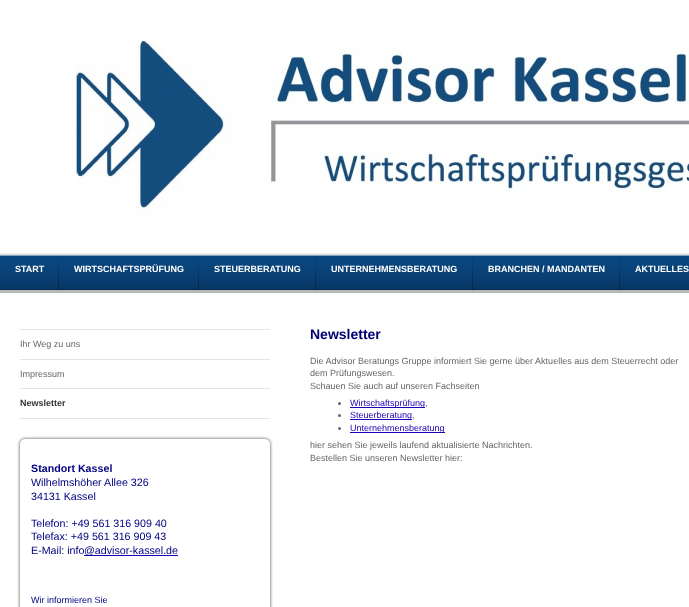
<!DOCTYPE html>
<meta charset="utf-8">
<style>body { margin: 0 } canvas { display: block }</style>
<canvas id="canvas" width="689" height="607"></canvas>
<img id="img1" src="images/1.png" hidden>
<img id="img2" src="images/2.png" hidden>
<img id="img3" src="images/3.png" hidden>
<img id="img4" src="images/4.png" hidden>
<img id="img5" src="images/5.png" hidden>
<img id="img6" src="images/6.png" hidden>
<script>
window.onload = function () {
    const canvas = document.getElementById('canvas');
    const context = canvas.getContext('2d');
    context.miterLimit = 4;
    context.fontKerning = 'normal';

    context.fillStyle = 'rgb(255, 255, 255)';
    context.fillRect(0, 0, 689, 607);
    context.drawImage(document.getElementById('img1'), 10, 0, 679, 245);
    context.drawImage(document.getElementById('img2'), 0, 253, 689, 2);
    context.fillStyle = 'rgb(10, 71, 128)';
    context.fillRect(0, 255, 689, 35);
    context.drawImage(document.getElementById('img3'), 0, 255, 689, 35);
    context.drawImage(document.getElementById('img4'), 58, 255, 1, 35);
    context.drawImage(document.getElementById('img4'), 198, 255, 1, 35);
    context.drawImage(document.getElementById('img4'), 315, 255, 1, 35);
    context.drawImage(document.getElementById('img4'), 472, 255, 1, 35);
    context.drawImage(document.getElementById('img4'), 619, 255, 1, 35);
    context.fillStyle = 'rgb(183, 183, 183)';
    context.fillRect(0, 290, 689, 3);
    context.fillStyle = 'rgb(229, 229, 229)';
    context.fillRect(20, 329, 250, 1);
    context.fillRect(20, 359, 250, 1);
    context.fillRect(20, 388, 250, 1);
    context.fillRect(20, 418, 250, 1);
    context.drawImage(document.getElementById('img5'), 17, 436, 256, 9);
    context.drawImage(document.getElementById('img6'), 17, 445, 256, 162);
    context.fillStyle = 'rgb(31, 0, 180)';
    context.fillRect(84, 555, 94, 1);
    context.fillStyle = 'rgb(250, 251, 253)';
    context.fillRect(139, 606, 3, 1);
    context.fillStyle = 'rgb(102, 102, 102)';
    context.beginPath();
    context.arc(339.5, 403.5, 1.5, 0, 2 * Math.PI);
    context.fill();
    context.fillStyle = 'rgb(31, 0, 180)';
    context.fillRect(350, 407, 75, 1);
    context.fillStyle = 'rgb(102, 102, 102)';
    context.beginPath();
    context.arc(339.5, 415.5, 1.5, 0, 2 * Math.PI);
    context.fill();
    context.fillStyle = 'rgb(31, 0, 180)';
    context.fillRect(350, 419, 62, 1);
    context.fillStyle = 'rgb(102, 102, 102)';
    context.beginPath();
    context.arc(339.5, 428.5, 1.5, 0, 2 * Math.PI);
    context.fill();
    context.fillStyle = 'rgb(31, 0, 180)';
    context.fillRect(350, 432, 95, 1);
    context.font = 'bold 9px Liberation Sans';
    context.fillStyle = 'rgb(255, 255, 255)';
    context.fillText('START', 15, 272);
    context.fillText('WIRTSCHAFTSPRÜFUNG', 74, 272);
    context.fillText('STEUERBERATUNG', 214, 272);
    context.fillText('UNTERNEHMENSBERATUNG', 331, 272);
    context.fillText('BRANCHEN / MANDANTEN', 488, 272);
    context.fillText('AKTUELLES', 635, 272);
    context.font = '9px Liberation Sans';
    context.fillStyle = 'rgb(102, 102, 102)';
    context.fillText('Ihr Weg zu uns', 20, 347);
    context.fillText('Impressum', 20, 377);
    context.font = 'bold 9px Liberation Sans';
    context.fillStyle = 'rgb(51, 51, 51)';
    context.fillText('Newsletter', 20, 406);
    context.font = 'bold 10.7px Liberation Sans';
    context.fillStyle = 'rgb(0, 0, 128)';
    context.fillText('Standort Kassel', 31, 472);
    context.font = '10.7px Liberation Sans';
    context.fillText('Wilhelmshöher Allee 326', 31, 486);
    context.fillText('34131 Kassel', 31, 500);
    context.fillText('Telefon: +49 561 316 909 40', 31, 527);
    context.fillText('Telefax: +49 561 316 909 43', 31, 540);
    context.fillText('E-Mail: info', 31, 554);
    context.fillText('@advisor-kassel.de', 84, 554);
    context.font = '9px Liberation Sans';
    context.fillText('Wir informieren Sie', 31, 603);
    context.font = 'bold 14px Liberation Sans';
    context.fillStyle = 'rgb(0, 0, 114)';
    context.fillText('Newsletter', 310, 339);
    context.font = '9px Liberation Sans';
    context.fillStyle = 'rgb(102, 102, 102)';
    context.fillText('Die Advisor Beratungs Gruppe informiert Sie gerne über Aktuelles aus dem Steuerrecht oder', 310, 364);
    context.fillText('dem Prüfungswesen.', 310, 376);
    context.fillText('Schauen Sie auch auf unseren Fachseiten', 310, 389);
    context.fillStyle = 'rgb(31, 0, 180)';
    context.fillText('Wirtschaftsprüfung', 350, 406);
    context.fillStyle = 'rgb(102, 102, 102)';
    context.fillText(',', 425, 406);
    context.fillStyle = 'rgb(31, 0, 180)';
    context.fillText('Steuerberatung', 350, 418);
    context.fillStyle = 'rgb(102, 102, 102)';
    context.fillText(',', 412, 418);
    context.fillStyle = 'rgb(31, 0, 180)';
    context.fillText('Unternehmensberatung', 350, 431);
    context.fillStyle = 'rgb(102, 102, 102)';
    context.fillText('hier sehen Sie jeweils laufend aktualisierte Nachrichten.', 310, 448);
    context.fillText('Bestellen Sie unseren Newsletter hier:', 310, 461);
};
</script>
